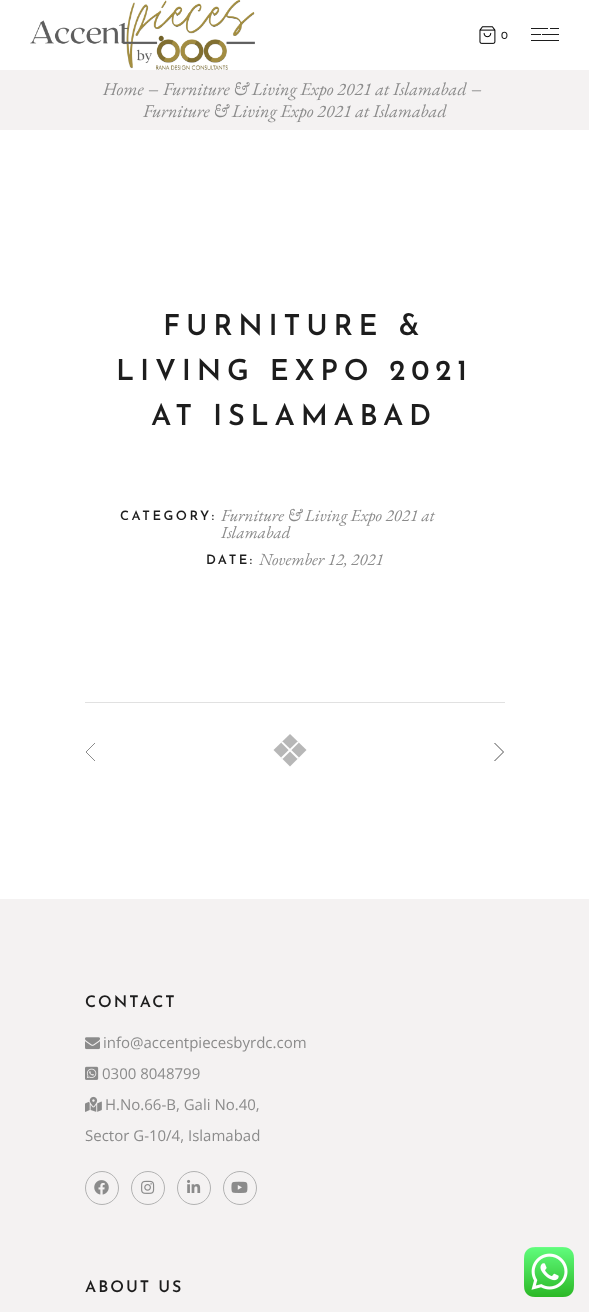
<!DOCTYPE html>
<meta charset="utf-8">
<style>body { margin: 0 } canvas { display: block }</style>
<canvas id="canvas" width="589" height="1312"></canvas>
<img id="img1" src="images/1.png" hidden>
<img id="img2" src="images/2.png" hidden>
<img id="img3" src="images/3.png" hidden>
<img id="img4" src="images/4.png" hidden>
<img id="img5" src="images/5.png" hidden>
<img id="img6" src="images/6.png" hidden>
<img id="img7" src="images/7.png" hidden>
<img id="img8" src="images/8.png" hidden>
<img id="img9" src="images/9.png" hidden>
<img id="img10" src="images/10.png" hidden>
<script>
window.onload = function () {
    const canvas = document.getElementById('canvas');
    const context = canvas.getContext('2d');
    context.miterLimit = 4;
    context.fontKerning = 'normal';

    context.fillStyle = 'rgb(255, 255, 255)';
    context.fillRect(0, 0, 589, 1312);
    context.drawImage(document.getElementById('img1'), 30, 0, 225, 70);
    context.drawImage(document.getElementById('img2'), 479, 26, 17, 18);
    context.fillStyle = 'rgb(29, 29, 29)';
    context.fillRect(531, 28, 17, 1);
    context.fillRect(550, 28, 9, 1);
    context.fillRect(531, 34, 10, 1);
    context.fillRect(542, 34, 17, 1);
    context.fillRect(531, 40, 28, 1);
    context.fillStyle = 'rgb(244, 242, 242)';
    context.fillRect(0, 70, 589, 60);
    context.fillStyle = 'rgb(225, 225, 225)';
    context.fillRect(85, 702, 420, 1);
    context.beginPath();
    context.moveTo(95, 761);
    context.lineTo(86, 752);
    context.lineTo(95, 743);
    context.moveTo(95, 761);
    context.lineTo(86, 752);
    context.lineTo(95, 743);
    context.strokeStyle = 'rgb(139, 139, 139)';
    context.stroke();
    context.fillStyle = 'rgb(183, 183, 183)';
    context.beginPath();
    context.moveTo(290, 734);
    context.lineTo(306.5, 750);
    context.lineTo(290, 766.5);
    context.lineTo(273.5, 750);
    context.closePath();
    context.fill();
    context.fillStyle = 'rgb(255, 255, 255)';
    context.beginPath();
    context.moveTo(282.5, 741.5);
    context.lineTo(299, 757.5);
    context.lineTo(297.5, 759);
    context.lineTo(281, 742.5);
    context.closePath();
    context.fill();
    context.beginPath();
    context.moveTo(299, 742.5);
    context.lineTo(282.5, 759);
    context.lineTo(281, 757.5);
    context.lineTo(297.5, 741.5);
    context.closePath();
    context.fill();
    context.beginPath();
    context.moveTo(494.5, 761);
    context.lineTo(503.5, 752);
    context.lineTo(494.5, 743);
    context.moveTo(494.5, 761);
    context.lineTo(503.5, 752);
    context.lineTo(494.5, 743);
    context.stroke();
    context.fillStyle = 'rgb(244, 242, 242)';
    context.fillRect(0, 899, 589, 413);
    context.drawImage(document.getElementById('img3'), 85, 1037, 15, 13);
    context.drawImage(document.getElementById('img4'), 85, 1066, 14, 14);
    context.drawImage(document.getElementById('img5'), 85, 1096, 17, 16);
    context.beginPath();
    context.arc(102, 1188, 16.5, 0, 2 * Math.PI);
    context.strokeStyle = 'rgb(178, 178, 178)';
    context.stroke();
    context.drawImage(document.getElementById('img6'), 94, 1180, 15, 15);
    context.beginPath();
    context.arc(148, 1188, 16.5, 0, 2 * Math.PI);
    context.stroke();
    context.drawImage(document.getElementById('img7'), 141, 1180, 14, 14);
    context.beginPath();
    context.arc(194, 1188, 16.5, 0, 2 * Math.PI);
    context.stroke();
    context.drawImage(document.getElementById('img8'), 187, 1179, 14, 14);
    context.beginPath();
    context.arc(240, 1188, 16.5, 0, 2 * Math.PI);
    context.stroke();
    context.drawImage(document.getElementById('img9'), 231, 1181, 17, 12);
    context.drawImage(document.getElementById('img10'), 524, 1247, 50, 50);
    context.letterSpacing = '3px';
    context.font = '11px Josefin Sans';
    context.fillStyle = 'rgb(29, 29, 29)';
    context.fillText('0', 501, 39);
    context.letterSpacing = '0px';
    context.font = 'italic 18px EB Garamond';
    context.fillStyle = 'rgb(139, 139, 139)';
    context.fillText('Home', 103, 95);
    context.font = 'italic 18px Liberation Serif';
    context.fillText('‒', 149, 95);
    context.font = 'italic 18px EB Garamond';
    context.fillText('Furniture & Living Expo 2021 at Islamabad', 163, 95);
    context.font = 'italic 18px Liberation Serif';
    context.fillText('‒', 472, 95);
    context.font = 'italic 18px EB Garamond';
    context.fillText('Furniture & Living Expo 2021 at Islamabad', 143, 117);
    context.letterSpacing = '5.75px';
    context.font = '600 29px Josefin Sans';
    context.fillStyle = 'rgb(29, 29, 29)';
    context.fillText('FURNITURE &', 163, 335);
    context.fillText('LIVING EXPO 2021', 116, 380);
    context.fillText('AT ISLAMABAD', 151, 425);
    context.letterSpacing = '2.5px';
    context.font = '600 13px Josefin Sans';
    context.fillText('CATEGORY:', 120, 520);
    context.letterSpacing = '0px';
    context.font = 'italic 17px EB Garamond';
    context.fillStyle = 'rgb(139, 139, 139)';
    context.fillText('Furniture & Living Expo 2021 at', 221, 521);
    context.fillText('Islamabad', 221, 538);
    context.letterSpacing = '2.5px';
    context.font = '600 13px Josefin Sans';
    context.fillStyle = 'rgb(29, 29, 29)';
    context.fillText('DATE:', 206, 564);
    context.letterSpacing = '0px';
    context.font = 'italic 17px EB Garamond';
    context.fillStyle = 'rgb(139, 139, 139)';
    context.fillText('November 12, 2021', 259, 565);
    context.letterSpacing = '2px';
    context.font = '600 16px Josefin Sans';
    context.fillStyle = 'rgb(29, 29, 29)';
    context.fillText('CONTACT', 85, 1007);
    context.letterSpacing = '0px';
    context.font = '15px Open Sans';
    context.fillStyle = 'rgb(139, 139, 139)';
    context.fillText('info@accentpiecesbyrdc.com', 103, 1048);
    context.fillText('0300 8048799', 102, 1079);
    context.fillText('H.No.66-B, Gali No.40,', 105, 1110);
    context.fillText('Sector G-10/4, Islamabad', 85, 1141);
    context.letterSpacing = '2px';
    context.font = '600 16px Josefin Sans';
    context.fillStyle = 'rgb(29, 29, 29)';
    context.fillText('ABOUT US', 85, 1292);
};
</script>
